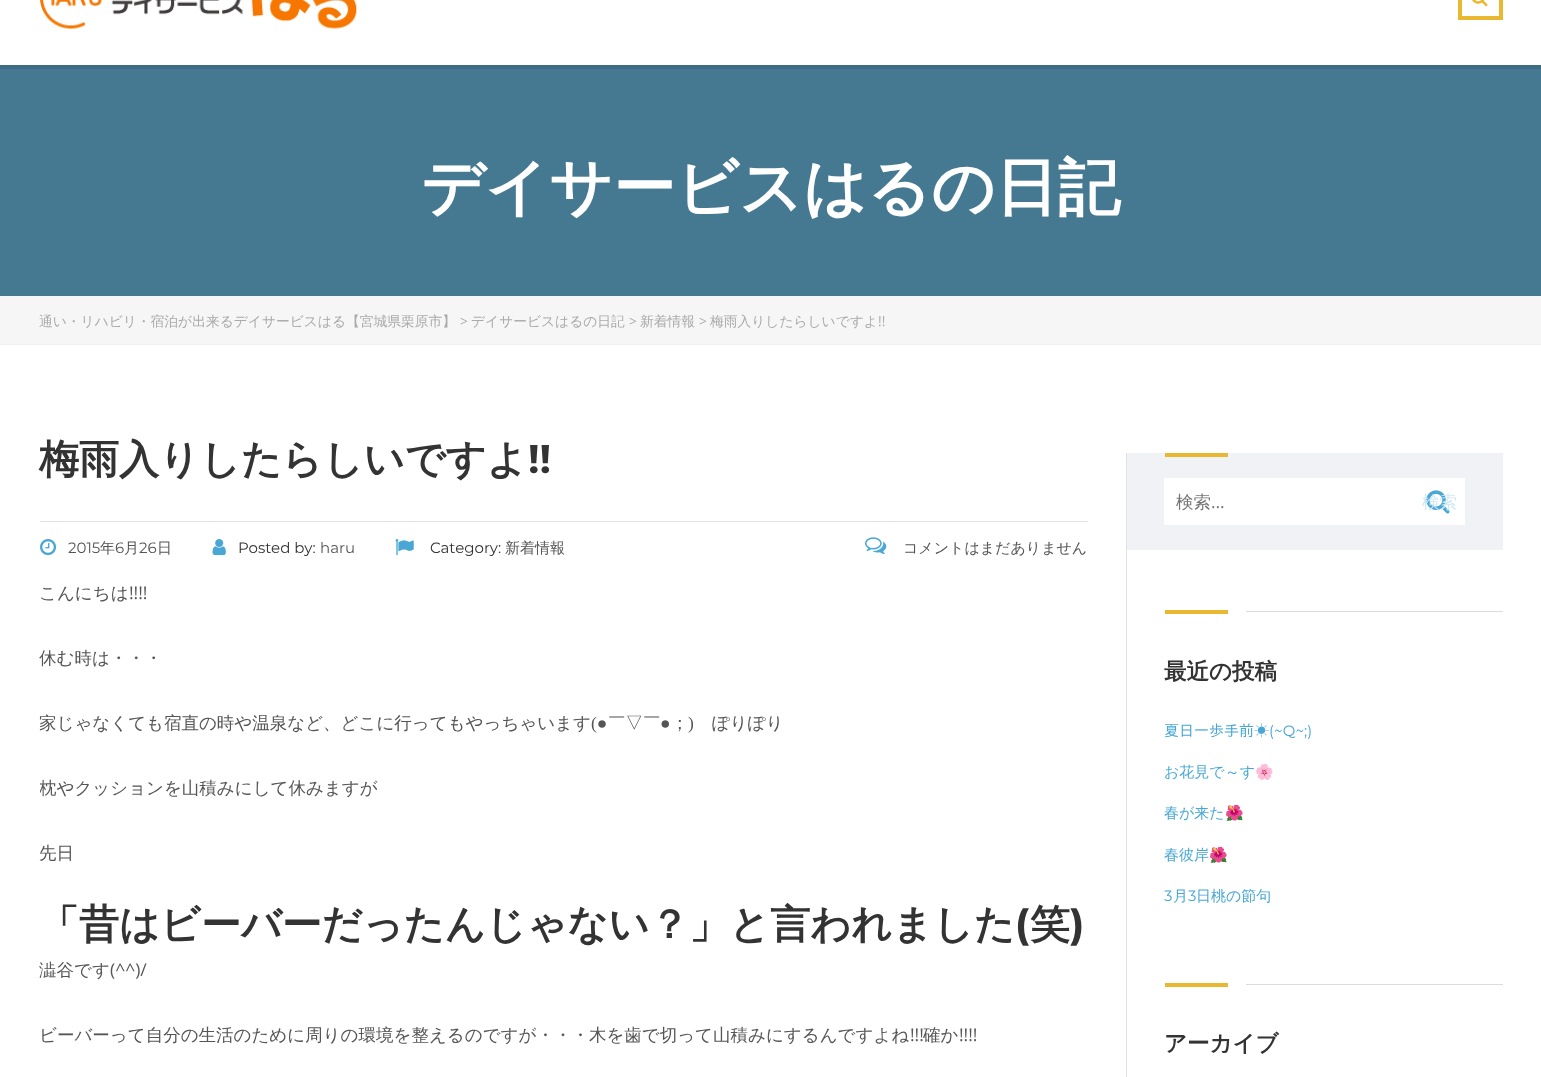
<!DOCTYPE html>
<meta charset="utf-8">
<style>body { margin: 0 } canvas { display: block }</style>
<canvas id="canvas" width="1541" height="1077"></canvas>
<img id="img1" src="images/1.png" hidden>
<img id="img2" src="images/2.png" hidden>
<img id="img3" src="images/3.png" hidden>
<img id="img4" src="images/4.png" hidden>
<img id="img5" src="images/5.png" hidden>
<img id="img6" src="images/6.png" hidden>
<img id="img7" src="images/7.png" hidden>
<script>
window.onload = function () {
    const canvas = document.getElementById('canvas');
    const context = canvas.getContext('2d');
    context.miterLimit = 4;
    context.fontKerning = 'normal';

    context.fillStyle = 'rgb(255, 255, 255)';
    context.fillRect(0, 0, 1541, 1077);
    context.drawImage(document.getElementById('img1'), 40, 0, 317, 29);
    context.strokeStyle = 'rgb(234, 184, 48)';
    context.lineWidth = 4;
    context.strokeRect(1460, -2, 41, 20);
    context.drawImage(document.getElementById('img2'), 1472, 0, 16, 7);
    context.fillStyle = 'rgb(62, 109, 131)';
    context.fillRect(0, 65, 1541, 4);
    context.fillStyle = 'rgb(69, 121, 146)';
    context.fillRect(0, 69, 1541, 227);
    context.fillStyle = 'rgb(246, 246, 246)';
    context.fillRect(0, 296, 1541, 48);
    context.fillStyle = 'rgb(240, 242, 245)';
    context.fillRect(0, 344, 1541, 1);
    context.fillStyle = 'rgb(225, 226, 228)';
    context.fillRect(40, 521, 1048, 1);
    context.drawImage(document.getElementById('img3'), 40, 539, 17, 17);
    context.drawImage(document.getElementById('img4'), 212, 539, 14, 17);
    context.drawImage(document.getElementById('img5'), 395, 539, 19, 17);
    context.drawImage(document.getElementById('img6'), 865, 537, 22, 17);
    context.fillRect(1126, 453, 1, 624);
    context.fillStyle = 'rgb(240, 242, 245)';
    context.fillRect(1127, 453, 376, 97);
    context.fillStyle = 'rgb(234, 184, 48)';
    context.fillRect(1165, 453, 63, 4);
    context.fillStyle = 'rgb(255, 255, 255)';
    context.fillRect(1164, 478, 301, 47);
    context.drawImage(document.getElementById('img7'), 1426, 490, 24, 24);
    context.fillStyle = 'rgb(234, 184, 48)';
    context.fillRect(1165, 610, 63, 4);
    context.fillStyle = 'rgb(220, 220, 220)';
    context.fillRect(1246, 611, 257, 1);
    context.fillStyle = 'rgb(234, 184, 48)';
    context.fillRect(1165, 983, 63, 4);
    context.fillStyle = 'rgb(220, 220, 220)';
    context.fillRect(1246, 984, 257, 1);
    context.font = 'bold 62.5px WenQuanYi Zen Hei';
    context.fillStyle = 'rgb(255, 255, 255)';
    context.fillText('デイサービスはるの日記', 421, 209);
    context.font = '500 13.75px WenQuanYi Zen Hei';
    context.fillStyle = 'rgb(170, 170, 170)';
    context.fillText('通い・リハビリ・宿泊が出来るデイサービスはる【宮城県栗原市】', 39, 326);
    context.font = '13.75px Open Sans';
    context.fillText('>', 460, 326);
    context.font = '500 13.75px WenQuanYi Zen Hei';
    context.fillText('デイサービスはるの日記', 471, 326);
    context.font = '13.75px Open Sans';
    context.fillText('>', 629, 326);
    context.font = '500 13.75px WenQuanYi Zen Hei';
    context.fillText('新着情報', 640, 326);
    context.font = '13.75px Open Sans';
    context.fillText('>', 699, 326);
    context.font = '500 13.75px WenQuanYi Zen Hei';
    context.fillText('梅雨入りしたらしいですよ', 710, 326);
    context.font = '13.75px Open Sans';
    context.fillText('!!', 878, 326);
    context.font = 'bold 40px WenQuanYi Zen Hei';
    context.fillStyle = 'rgb(51, 51, 51)';
    context.fillText('梅雨入りしたらしいですよ', 39, 473);
    context.font = 'bold 40px Montserrat';
    context.fillText('!!', 528, 473);
    context.font = '15px Montserrat';
    context.fillStyle = 'rgb(85, 85, 85)';
    context.fillText('2015', 68, 553);
    context.font = '500 15px WenQuanYi Zen Hei';
    context.fillText('年', 100, 553);
    context.font = '15px Montserrat';
    context.fillText('6', 115, 553);
    context.font = '500 15px WenQuanYi Zen Hei';
    context.fillText('月', 124, 553);
    context.font = '15px Montserrat';
    context.fillText('26', 139, 553);
    context.font = '500 15px WenQuanYi Zen Hei';
    context.fillText('日', 157, 553);
    context.font = '15px Montserrat';
    context.fillStyle = 'rgb(51, 51, 51)';
    context.fillText('Posted by:', 238, 553);
    context.fillStyle = 'rgb(85, 85, 85)';
    context.fillText('haru', 320, 553);
    context.fillStyle = 'rgb(51, 51, 51)';
    context.fillText('Category:', 430, 553);
    context.font = '500 15px WenQuanYi Zen Hei';
    context.fillStyle = 'rgb(85, 85, 85)';
    context.fillText('新着情報', 505, 553);
    context.fillText('コメントはまだありません', 903, 553);
    context.font = '500 17.5px WenQuanYi Zen Hei';
    context.fillText('こんにちは', 39, 599);
    context.font = '17.5px Open Sans';
    context.fillText('!!!!', 129, 599);
    context.font = '500 17.5px WenQuanYi Zen Hei';
    context.fillText('休む時は・・・', 39, 664);
    context.fillText('家じゃなくても宿直の時や温泉など、どこに行ってもやっちゃいます', 39, 729);
    context.font = '17.5px Liberation Serif';
    context.fillText('(●', 591, 729);
    context.font = '500 17.5px WenQuanYi Zen Hei';
    context.fillText('￣▽￣', 608, 729);
    context.font = '17.5px Liberation Serif';
    context.fillText('●', 660, 729);
    context.font = '500 17.5px WenQuanYi Zen Hei';
    context.fillText('；', 671, 729);
    context.font = '17.5px Liberation Serif';
    context.fillText(')', 688, 729);
    context.font = '500 17.5px WenQuanYi Zen Hei';
    context.fillText('ゞぽりぽり', 694, 729);
    context.save();
    context.beginPath();
    context.rect(40, 420, 1048, 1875);
    context.clip();
    context.fillText('枕やクッションを山積みにして休みますが', 39, 794);
    context.restore();
    context.fillText('先日', 39, 859);
    context.font = 'bold 40px WenQuanYi Zen Hei';
    context.fillStyle = 'rgb(51, 51, 51)';
    context.fillText('「昔はビーバーだったんじゃない？」と言われました', 39, 938);
    context.font = 'bold 40px Montserrat';
    context.fillText('(', 1015, 938);
    context.font = 'bold 40px WenQuanYi Zen Hei';
    context.fillText('笑', 1030, 938);
    context.font = 'bold 40px Montserrat';
    context.fillText(')', 1070, 938);
    context.font = '500 17.5px WenQuanYi Zen Hei';
    context.fillStyle = 'rgb(85, 85, 85)';
    context.fillText('澁谷です', 39, 976);
    context.font = '17.5px Open Sans';
    context.fillText('(^^)/', 110, 976);
    context.font = '500 17.5px WenQuanYi Zen Hei';
    context.fillText('ビーバーって自分の生活のために周りの環境を整えるのですが・・・木を歯で切って山積みにするんですよね', 39, 1041);
    context.font = '17.5px Open Sans';
    context.fillText('!!!', 910, 1041);
    context.font = '500 17.5px WenQuanYi Zen Hei';
    context.fillText('確か', 923, 1041);
    context.font = '17.5px Open Sans';
    context.fillText('!!!!', 959, 1041);
    context.font = '500 17.5px WenQuanYi Zen Hei';
    context.fillStyle = 'rgb(117, 117, 117)';
    context.fillText('検索', 1176, 508);
    context.font = '17.5px Open Sans';
    context.fillText('…', 1211, 508);
    context.font = '500 17.5px WenQuanYi Zen Hei';
    context.fillStyle = 'rgb(207, 232, 244)';
    context.fillText('検索', 1422, 508);
    context.font = 'bold 22.5px WenQuanYi Zen Hei';
    context.fillStyle = 'rgb(51, 51, 51)';
    context.fillText('最近の投稿', 1164, 679);
    context.font = '15px IPAPGothic';
    context.fillStyle = 'rgb(72, 167, 212)';
    context.fillText('夏日一歩手前☀', 1164, 736);
    context.font = '15px Montserrat';
    context.fillText('(~Q~;)', 1269, 736);
    context.font = '500 15px WenQuanYi Zen Hei';
    context.fillText('お花見で～す', 1164, 777);
    context.font = '15px Noto Color Emoji';
    context.fillText('🌸', 1255, 777);
    context.font = '500 15px WenQuanYi Zen Hei';
    context.fillText('春が来た', 1164, 818);
    context.font = '15px Noto Color Emoji';
    context.fillText('🌺', 1225, 818);
    context.font = '500 15px WenQuanYi Zen Hei';
    context.fillText('春彼岸', 1164, 860);
    context.font = '15px Noto Color Emoji';
    context.fillText('🌺', 1209, 860);
    context.font = '15px Montserrat';
    context.fillText('3', 1164, 901);
    context.font = '500 15px WenQuanYi Zen Hei';
    context.fillText('月', 1173, 901);
    context.font = '15px Montserrat';
    context.fillText('3', 1188, 901);
    context.font = '500 15px WenQuanYi Zen Hei';
    context.fillText('日桃の節句', 1196, 901);
    context.font = 'bold 22.5px WenQuanYi Zen Hei';
    context.fillStyle = 'rgb(51, 51, 51)';
    context.fillText('アーカイブ', 1164, 1051);
};
</script>
